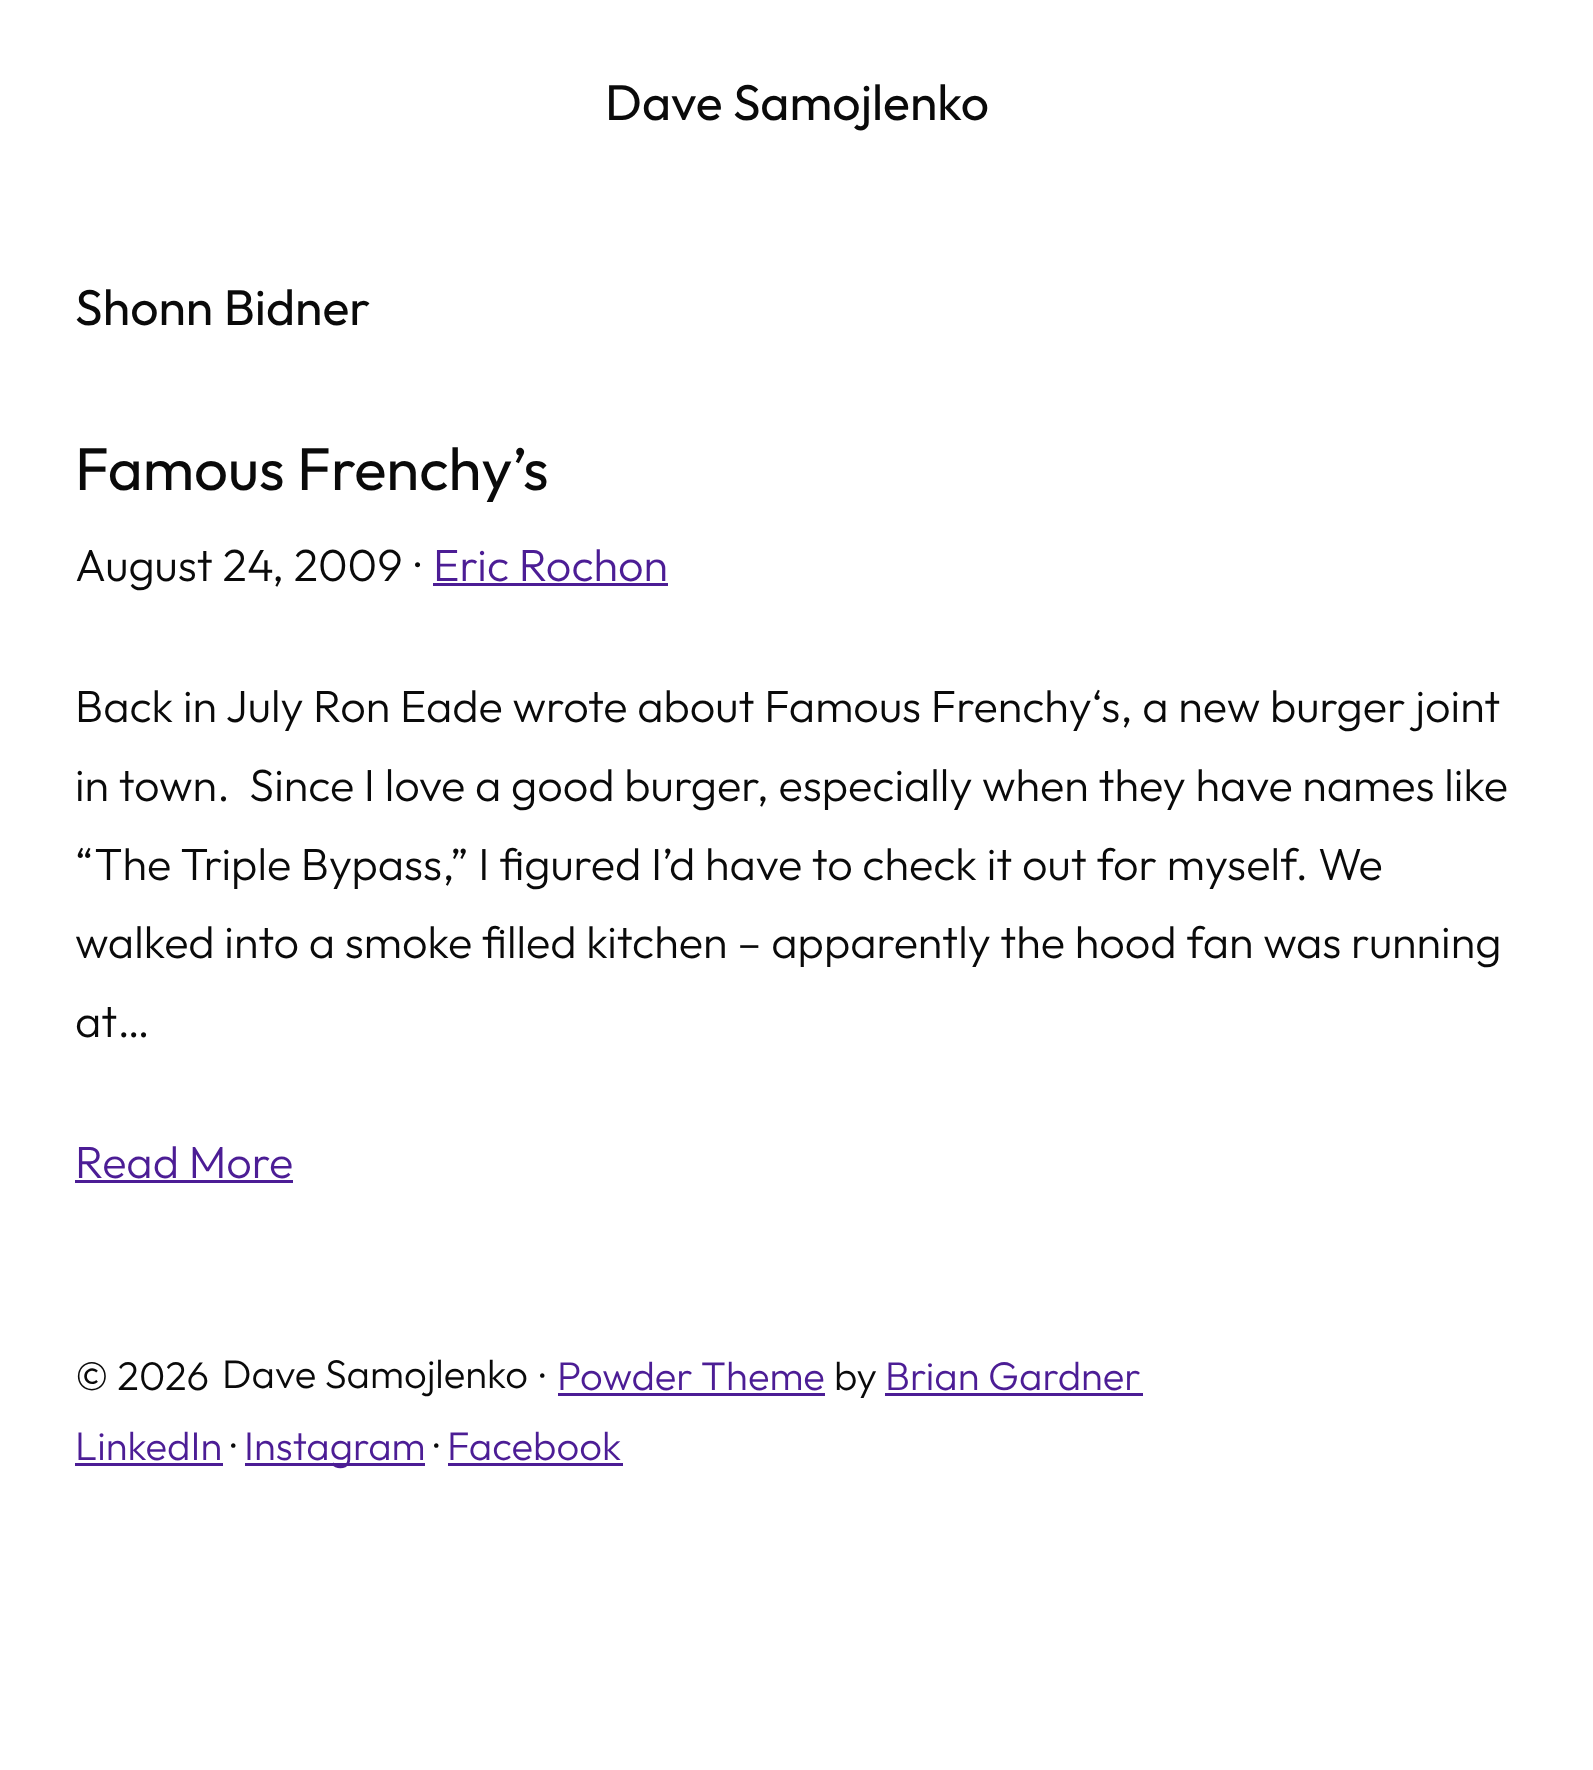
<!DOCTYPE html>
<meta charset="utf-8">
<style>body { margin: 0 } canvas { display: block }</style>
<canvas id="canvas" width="1593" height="1770"></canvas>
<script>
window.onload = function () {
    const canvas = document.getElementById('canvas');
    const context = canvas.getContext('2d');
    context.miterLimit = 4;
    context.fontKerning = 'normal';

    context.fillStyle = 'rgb(255, 255, 255)';
    context.fillRect(0, 0, 1593, 1770);
    context.fillStyle = 'rgb(76, 29, 149)';
    context.fillRect(433, 583, 235, 3);
    context.fillRect(75, 1180, 218, 3);
    context.fillRect(558, 1393, 267, 3);
    context.fillRect(885, 1393, 258, 3);
    context.fillRect(75, 1463, 148, 3);
    context.fillRect(245, 1463, 180, 3);
    context.fillRect(448, 1463, 175, 3);
    context.font = '50px Outfit';
    context.fillStyle = 'rgb(10, 10, 10)';
    context.fillText('Dave Samojlenko', 605, 120);
    context.fillText('Shonn Bidner', 75, 325);
    context.font = '60px Outfit';
    context.fillText('Famous Frenchy’s', 75, 490);
    context.font = '300 45px Outfit';
    context.fillText('August 24, 2009', 75, 581);
    context.fillText('·', 415, 581);
    context.fillStyle = 'rgb(76, 29, 149)';
    context.fillText('Eric Rochon', 433, 581);
    context.fillStyle = 'rgb(10, 10, 10)';
    context.fillText('Back in July Ron Eade wrote about Famous Frenchy‘s, a new burger joint', 75, 722);
    context.fillText('in town.  Since I love a good burger, especially when they have names like', 75, 801);
    context.fillText('“The Triple Bypass,” I figured I’d have to check it out for myself. We', 75, 880);
    context.fillText('walked into a smoke filled kitchen – apparently the hood fan was running', 75, 958);
    context.fillText('at…', 75, 1037);
    context.fillStyle = 'rgb(76, 29, 149)';
    context.fillText('Read More', 75, 1178);
    context.font = '300 40px Outfit';
    context.fillStyle = 'rgb(10, 10, 10)';
    context.fillText('© 2026', 75, 1390);
    context.fillText('Dave Samojlenko', 222, 1388);
    context.fillText('·', 540, 1390);
    context.fillStyle = 'rgb(76, 29, 149)';
    context.fillText('Powder Theme', 557, 1390);
    context.fillStyle = 'rgb(10, 10, 10)';
    context.fillText('by', 834, 1390);
    context.fillStyle = 'rgb(76, 29, 149)';
    context.fillText('Brian Gardner', 885, 1390);
    context.fillText('LinkedIn', 75, 1460);
    context.fillStyle = 'rgb(10, 10, 10)';
    context.fillText('·', 231, 1460);
    context.fillStyle = 'rgb(76, 29, 149)';
    context.fillText('Instagram', 244, 1460);
    context.fillStyle = 'rgb(10, 10, 10)';
    context.fillText('·', 434, 1460);
    context.fillStyle = 'rgb(76, 29, 149)';
    context.fillText('Facebook', 447, 1460);
};
</script>
